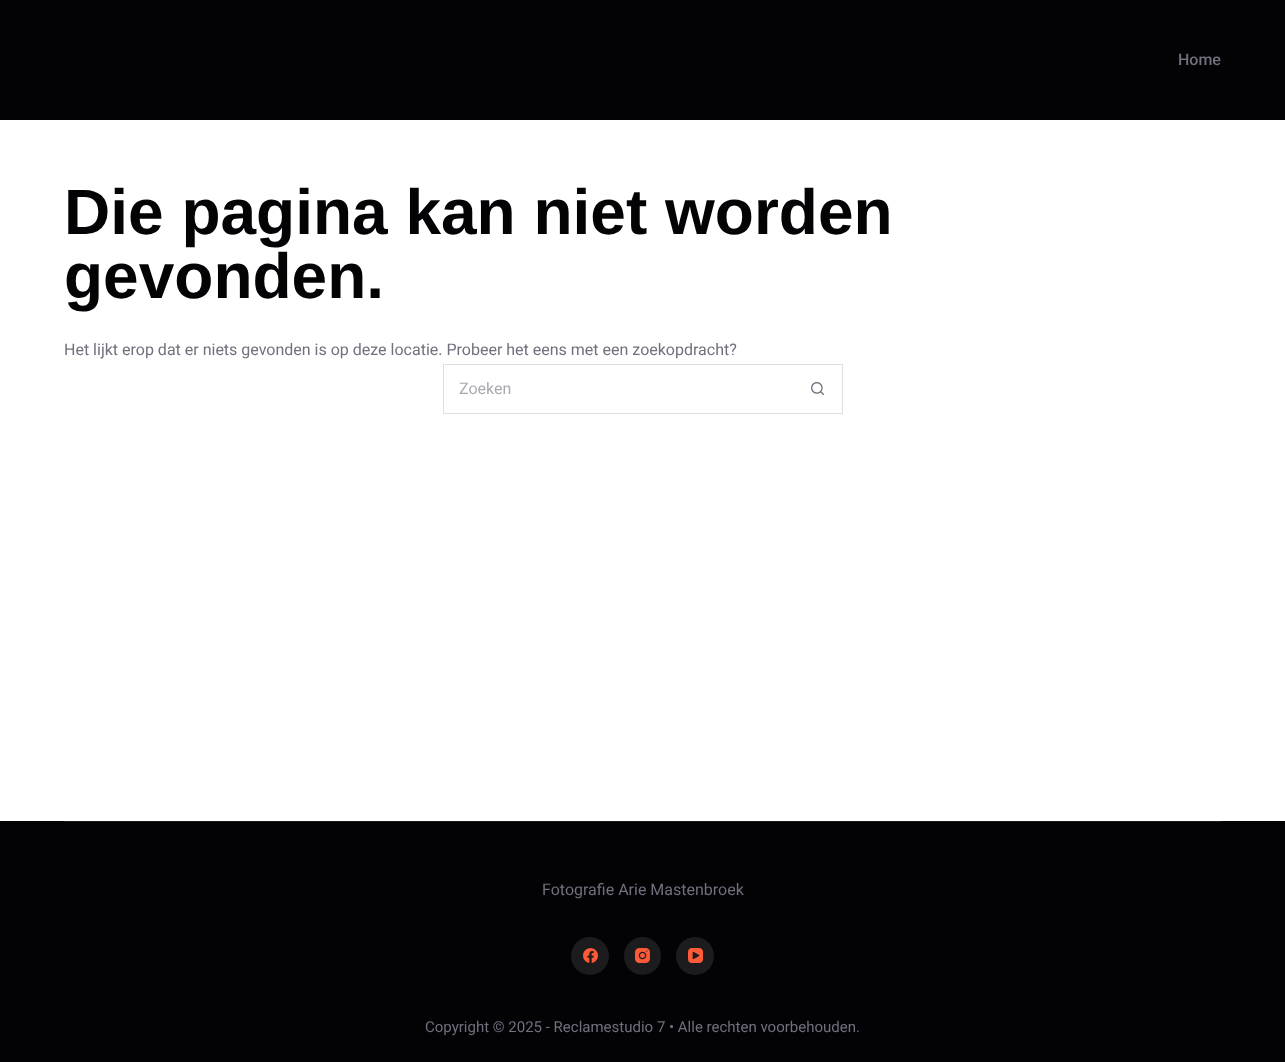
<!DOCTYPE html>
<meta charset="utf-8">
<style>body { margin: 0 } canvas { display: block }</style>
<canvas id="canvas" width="1285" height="1062"></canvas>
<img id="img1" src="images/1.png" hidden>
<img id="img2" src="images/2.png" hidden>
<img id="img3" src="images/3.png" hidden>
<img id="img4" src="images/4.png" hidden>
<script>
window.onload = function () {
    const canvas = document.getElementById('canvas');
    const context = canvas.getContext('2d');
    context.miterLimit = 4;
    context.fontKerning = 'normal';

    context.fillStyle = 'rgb(255, 255, 255)';
    context.fillRect(0, 0, 1285, 1062);
    context.fillStyle = 'rgb(3, 3, 6)';
    context.fillRect(0, 0, 1285, 120);
    context.fillStyle = 'rgb(223, 223, 226)';
    context.fillRect(443, 364, 400, 1);
    context.fillRect(443, 413, 350, 1);
    context.fillRect(443, 364, 1, 50);
    context.fillRect(842, 364, 1, 50);
    context.fillRect(793, 413, 50, 1);
    context.drawImage(document.getElementById('img1'), 811, 382, 13, 13);
    context.fillStyle = 'rgb(3, 3, 6)';
    context.fillRect(0, 821, 1285, 241);
    context.fillStyle = 'rgb(28, 28, 31)';
    context.fillRect(64, 821, 1157, 1);
    context.beginPath();
    context.arc(590, 956, 19, 0, 2 * Math.PI);
    context.fill();
    context.drawImage(document.getElementById('img2'), 583, 948, 15, 15);
    context.beginPath();
    context.roundRect(624, 937, 37, 38, 18.5);
    context.fill();
    context.drawImage(document.getElementById('img3'), 635, 948, 15, 15);
    context.beginPath();
    context.arc(695, 956, 19, 0, 2 * Math.PI);
    context.fill();
    context.drawImage(document.getElementById('img4'), 688, 948, 15, 15);
    context.font = '500 16px Roboto';
    context.fillStyle = 'rgb(112, 112, 126)';
    context.fillText('Home', 1178, 65);
    context.font = 'bold 64px Liberation Sans';
    context.fillStyle = 'rgb(3, 3, 6)';
    context.fillText('Die pagina kan niet worden', 64, 234);
    context.fillText('gevonden.', 64, 298);
    context.font = '16px Roboto';
    context.fillStyle = 'rgb(112, 112, 126)';
    context.fillText('Het lijkt erop dat er niets gevonden is op deze locatie. Probeer het eens met een zoekopdracht?', 64, 355);
    context.fillStyle = 'rgb(169, 169, 178)';
    context.fillText('Zoeken', 459, 394);
    context.fillStyle = 'rgb(112, 112, 126)';
    context.fillText('Fotografie Arie Mastenbroek', 542, 895);
    context.font = '15px Roboto';
    context.fillText('Copyright © 2025 - Reclamestudio 7 • Alle rechten voorbehouden.', 425, 1032);
};
</script>
